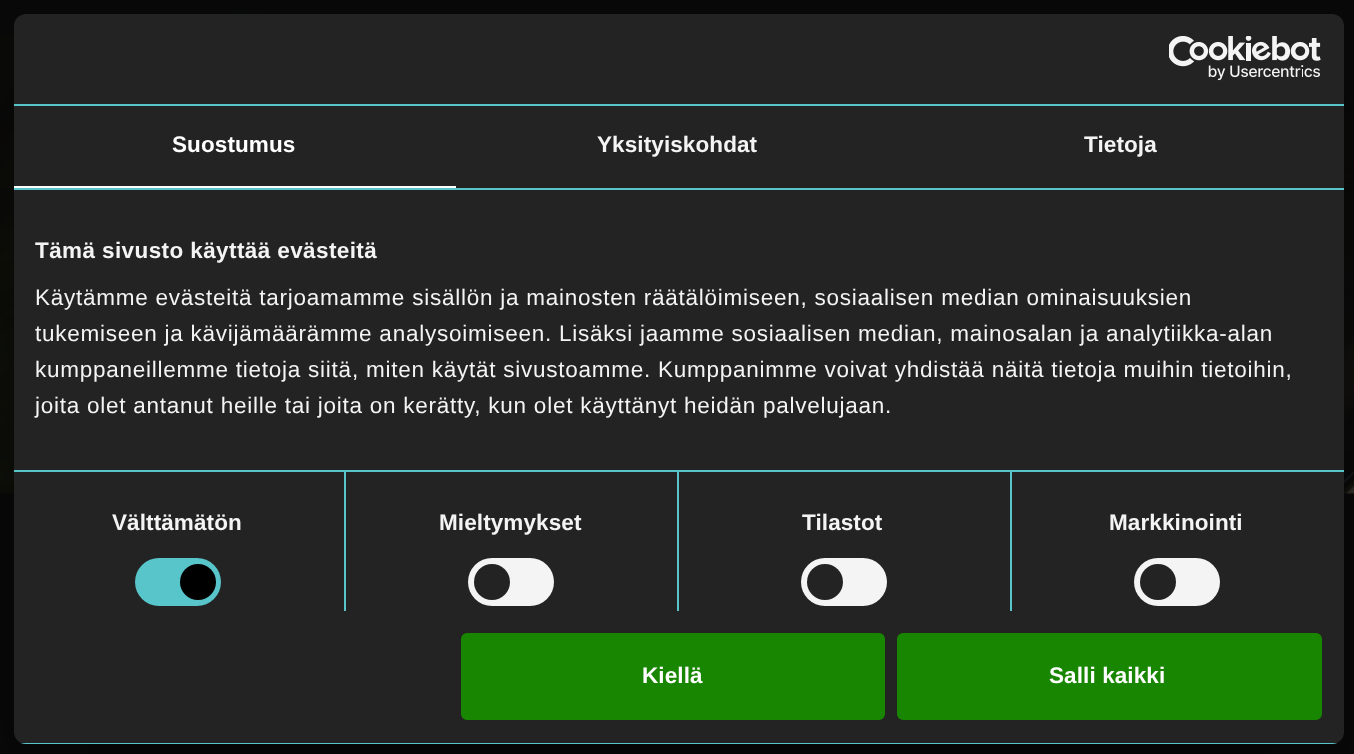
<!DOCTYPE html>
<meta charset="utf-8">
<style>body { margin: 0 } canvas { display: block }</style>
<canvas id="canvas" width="1354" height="754"></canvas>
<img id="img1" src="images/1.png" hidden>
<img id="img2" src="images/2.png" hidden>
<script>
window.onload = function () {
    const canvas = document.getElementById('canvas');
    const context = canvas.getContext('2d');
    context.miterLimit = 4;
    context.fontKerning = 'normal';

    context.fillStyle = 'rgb(9, 9, 9)';
    context.fillRect(0, 0, 1354, 754);
    context.drawImage(document.getElementById('img1'), 0, 3, 1354, 491);
    context.fillStyle = 'rgba(0, 0, 0, 0.3)';
    context.filter = 'blur(51px)';
    context.beginPath();
    context.roundRect(14, 62, 1330, 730, 12);
    context.fill();
    context.filter = 'none';
    context.fillStyle = 'rgb(35, 35, 35)';
    context.beginPath();
    context.roundRect(14, 14, 1330, 730, 12);
    context.fill();
    context.fillStyle = 'rgb(88, 197, 202)';
    context.fillRect(14, 104, 1330, 2);
    context.drawImage(document.getElementById('img2'), 1169, 36, 152, 45);
    context.fillRect(14, 188, 1330, 2);
    context.fillStyle = 'rgb(255, 255, 255)';
    context.fillRect(14, 186, 442, 2);
    context.fillStyle = 'rgb(88, 197, 202)';
    context.fillRect(344, 471, 2, 140);
    context.fillRect(677, 471, 2, 140);
    context.fillRect(1010, 471, 2, 140);
    context.fillRect(14, 470, 1330, 2);
    context.beginPath();
    context.roundRect(135, 558, 86, 48, 24);
    context.fill();
    context.fillStyle = 'rgb(0, 0, 0)';
    context.beginPath();
    context.arc(198, 582, 18, 0, 2 * Math.PI);
    context.fill();
    context.fillStyle = 'rgb(244, 244, 244)';
    context.beginPath();
    context.roundRect(468, 558, 86, 48, 24);
    context.fill();
    context.fillStyle = 'rgb(35, 35, 35)';
    context.beginPath();
    context.arc(492, 582, 18, 0, 2 * Math.PI);
    context.fill();
    context.fillStyle = 'rgb(244, 244, 244)';
    context.beginPath();
    context.roundRect(801, 558, 86, 48, 24);
    context.fill();
    context.fillStyle = 'rgb(35, 35, 35)';
    context.beginPath();
    context.arc(825, 582, 18, 0, 2 * Math.PI);
    context.fill();
    context.fillStyle = 'rgb(244, 244, 244)';
    context.beginPath();
    context.roundRect(1134, 558, 86, 48, 24);
    context.fill();
    context.fillStyle = 'rgb(35, 35, 35)';
    context.beginPath();
    context.arc(1158, 582, 18, 0, 2 * Math.PI);
    context.fill();
    context.save();
    context.beginPath();
    context.roundRect(14, 14, 1330, 730, 12);
    context.clip();
    context.fillStyle = 'rgb(88, 197, 202)';
    context.fillRect(14, 743, 1330, 1);
    context.restore();
    context.fillStyle = 'rgb(24, 134, 0)';
    context.beginPath();
    context.roundRect(462.5, 634.5, 421, 84, 4.5);
    context.fill();
    context.strokeStyle = 'rgb(24, 134, 0)';
    context.lineWidth = 3;
    context.stroke();
    context.beginPath();
    context.roundRect(898.5, 634.5, 422, 84, 4.5);
    context.fill();
    context.stroke();
    context.letterSpacing = '0.1px';
    context.font = 'bold 22.5px Liberation Sans';
    context.fillStyle = 'rgb(255, 255, 255)';
    context.fillText('Suostumus', 172, 152);
    context.fillStyle = 'rgb(244, 244, 244)';
    context.fillText('Yksityiskohdat', 597, 152);
    context.fillText('Tietoja', 1084, 152);
    context.letterSpacing = '0.4px';
    context.fillText('Tämä sivusto käyttää evästeitä', 35, 258);
    context.letterSpacing = '0.75px';
    context.font = '22.5px Liberation Sans';
    context.fillText('Käytämme evästeitä tarjoamamme sisällön ja mainosten räätälöimiseen, sosiaalisen median ominaisuuksien', 35, 305);
    context.fillText('tukemiseen ja kävijämäärämme analysoimiseen. Lisäksi jaamme sosiaalisen median, mainosalan ja analytiikka-alan', 35, 341);
    context.fillText('kumppaneillemme tietoja siitä, miten käytät sivustoamme. Kumppanimme voivat yhdistää näitä tietoja muihin tietoihin,', 35, 377);
    context.fillText('joita olet antanut heille tai joita on kerätty, kun olet käyttänyt heidän palvelujaan.', 35, 413);
    context.letterSpacing = '0.1px';
    context.font = 'bold 22.5px Liberation Sans';
    context.fillText('Välttämätön', 112, 530);
    context.fillText('Mieltymykset', 439, 530);
    context.fillText('Tilastot', 802, 530);
    context.fillText('Markkinointi', 1109, 530);
    context.fillStyle = 'rgb(255, 255, 255)';
    context.fillText('Kiellä', 642, 683);
    context.fillText('Salli kaikki', 1049, 683);
};
</script>
